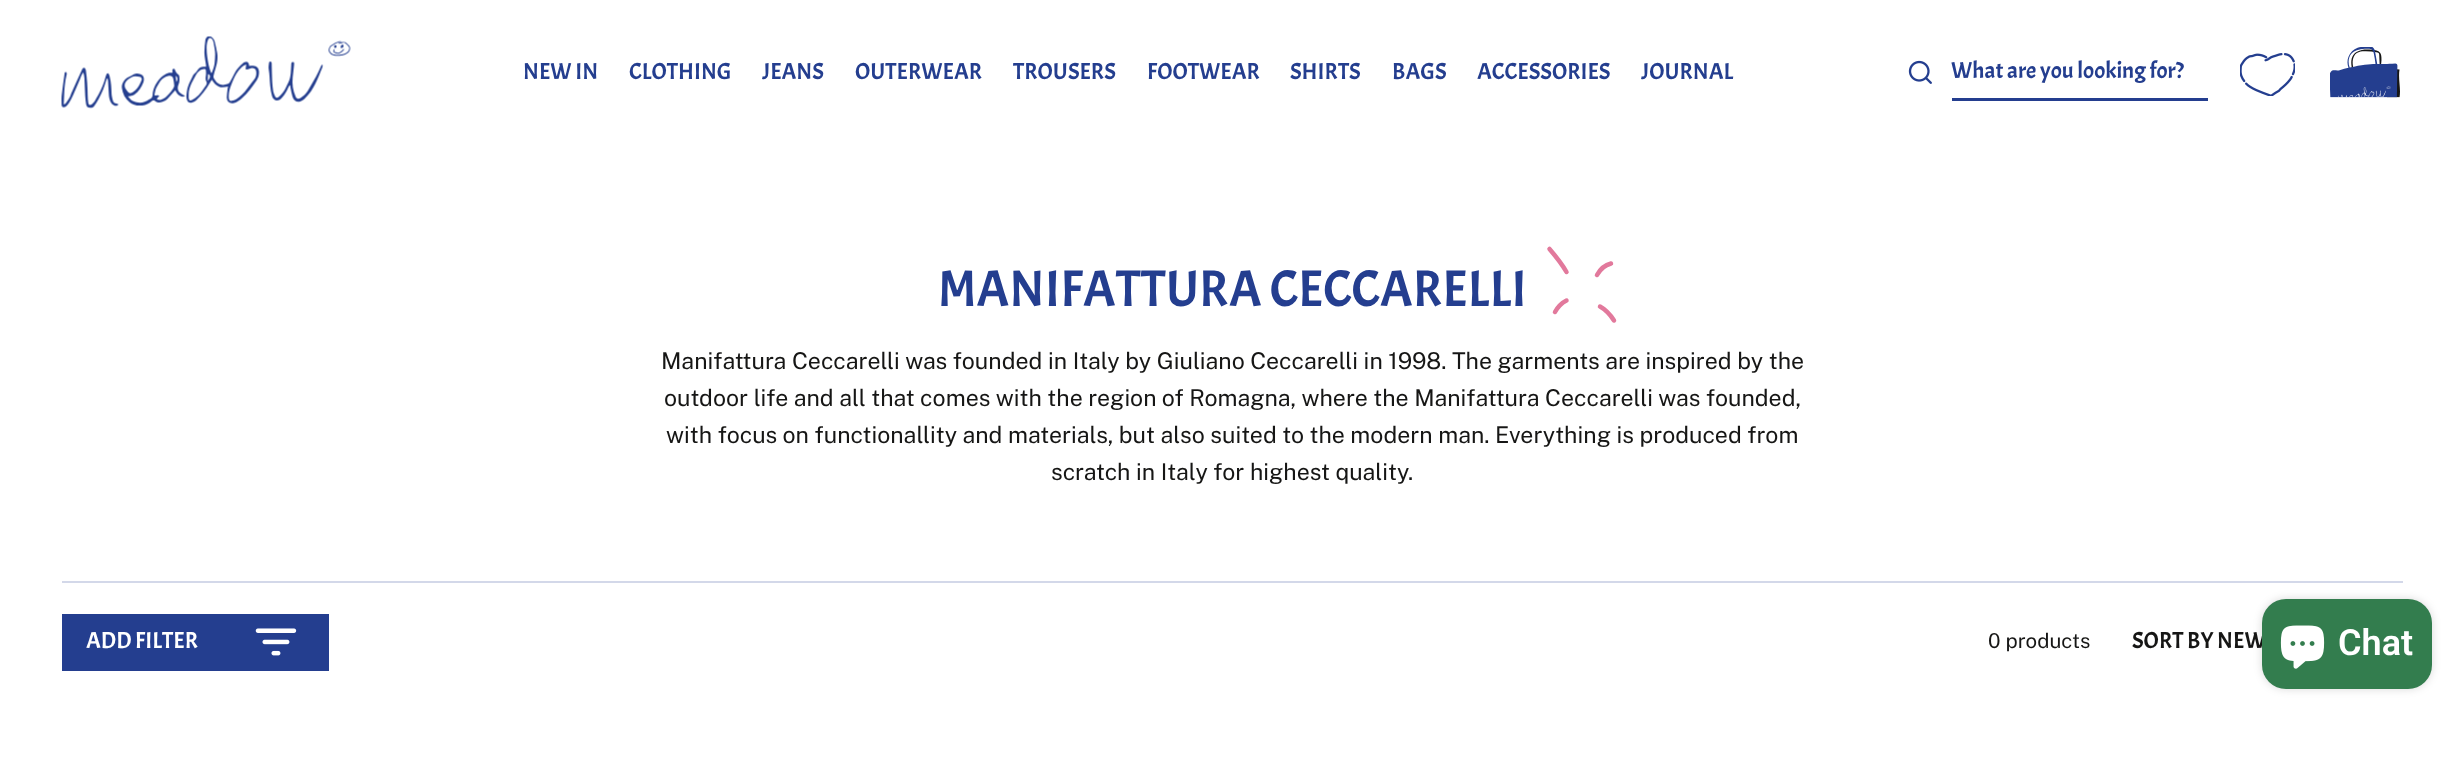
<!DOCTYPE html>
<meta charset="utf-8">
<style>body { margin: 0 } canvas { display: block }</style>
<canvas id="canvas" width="2464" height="763"></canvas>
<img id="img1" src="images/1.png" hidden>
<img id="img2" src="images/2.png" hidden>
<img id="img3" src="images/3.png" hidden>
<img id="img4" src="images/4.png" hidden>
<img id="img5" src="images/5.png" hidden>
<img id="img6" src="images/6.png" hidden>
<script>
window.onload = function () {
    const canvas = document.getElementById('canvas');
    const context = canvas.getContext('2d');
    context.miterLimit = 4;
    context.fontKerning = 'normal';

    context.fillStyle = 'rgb(255, 255, 255)';
    context.fillRect(0, 0, 2464, 763);
    context.drawImage(document.getElementById('img1'), 61, 36, 290, 73);
    context.drawImage(document.getElementById('img2'), 1908, 60, 24, 24);
    context.fillStyle = 'rgb(36, 62, 143)';
    context.fillRect(1952, 98, 256, 3);
    context.drawImage(document.getElementById('img3'), 2240, 53, 55, 43);
    context.drawImage(document.getElementById('img4'), 2330, 47, 70, 51);
    context.beginPath();
    context.moveTo(1611, 263.5);
    context.bezierCurveTo(1605, 265, 1600, 269.5, 1597, 275);
    context.moveTo(1566.5, 300.5);
    context.bezierCurveTo(1561.5, 303, 1557.5, 307.5, 1555, 312);
    context.strokeStyle = 'rgb(226, 121, 156)';
    context.lineWidth = 4.5;
    context.lineCap = 'round';
    context.lineJoin = 'round';
    context.stroke();
    context.beginPath();
    context.moveTo(1614, 320.5);
    context.bezierCurveTo(1610.5, 315, 1605.5, 309.5, 1600, 306.5);
    context.stroke();
    context.beginPath();
    context.moveTo(1566.5, 272);
    context.bezierCurveTo(1562, 264, 1555.5, 256, 1549.5, 249);
    context.stroke();
    context.fillStyle = 'rgb(211, 216, 233)';
    context.fillRect(62, 581, 2341, 2);
    context.fillStyle = 'rgb(36, 62, 143)';
    context.fillRect(62, 614, 267, 57);
    context.drawImage(document.getElementById('img5'), 255, 628, 42, 28);
    context.fillStyle = 'rgba(0, 0, 0, 0.15)';
    context.filter = 'blur(4px)';
    context.beginPath();
    context.roundRect(2262, 599, 170, 90, 24);
    context.fill();
    context.filter = 'none';
    context.font = '23.1px Acme';
    context.fillStyle = 'rgb(36, 62, 143)';
    context.fillText('NEW IN', 523, 79);
    context.fillText('CLOTHING', 629, 79);
    context.fillText('JEANS', 762, 79);
    context.fillText('OUTERWEAR', 855, 79);
    context.fillText('TROUSERS', 1013, 79);
    context.fillText('FOOTWEAR', 1147, 79);
    context.fillText('SHIRTS', 1290, 79);
    context.fillText('BAGS', 1392, 79);
    context.fillText('ACCESSORIES', 1477, 79);
    context.fillText('JOURNAL', 1641, 79);
    context.fillText('What are you looking for?', 1951, 78);
    context.font = '51.3px Acme';
    context.fillText('MANIFATTURA CECCARELLI', 938, 306);
    context.font = '23.1px Public Sans';
    context.fillStyle = 'rgb(22, 22, 21)';
    context.fillText('Manifattura Ceccarelli was founded in Italy by Giuliano Ceccarelli in 1998. The garments are inspired by the', 661, 369);
    context.fillText('outdoor life and all that comes with the region of Romagna, where the Manifattura Ceccarelli was founded,', 664, 406);
    context.fillText('with focus on functionallity and materials, but also suited to the modern man. Everything is produced from', 666, 443);
    context.fillText('scratch in Italy for highest quality.', 1051, 480);
    context.font = '23.1px Acme';
    context.fillStyle = 'rgb(255, 255, 255)';
    context.fillText('ADD FILTER', 86, 648);
    context.font = '20.5px Public Sans';
    context.fillStyle = 'rgb(22, 22, 21)';
    context.fillText('0 products', 1988, 648);
    context.font = '23.1px Acme';
    context.fillText('SORT BY NEW', 2132, 648);
    context.fillStyle = 'rgb(51, 125, 78)';
    context.beginPath();
    context.roundRect(2262, 599, 170, 90, 24);
    context.fill();
    context.drawImage(document.getElementById('img6'), 2280, 625, 45, 44);
    context.font = '600 36px Roboto';
    context.fillStyle = 'rgb(255, 255, 255)';
    context.fillText('Chat', 2338, 655);
};
</script>
